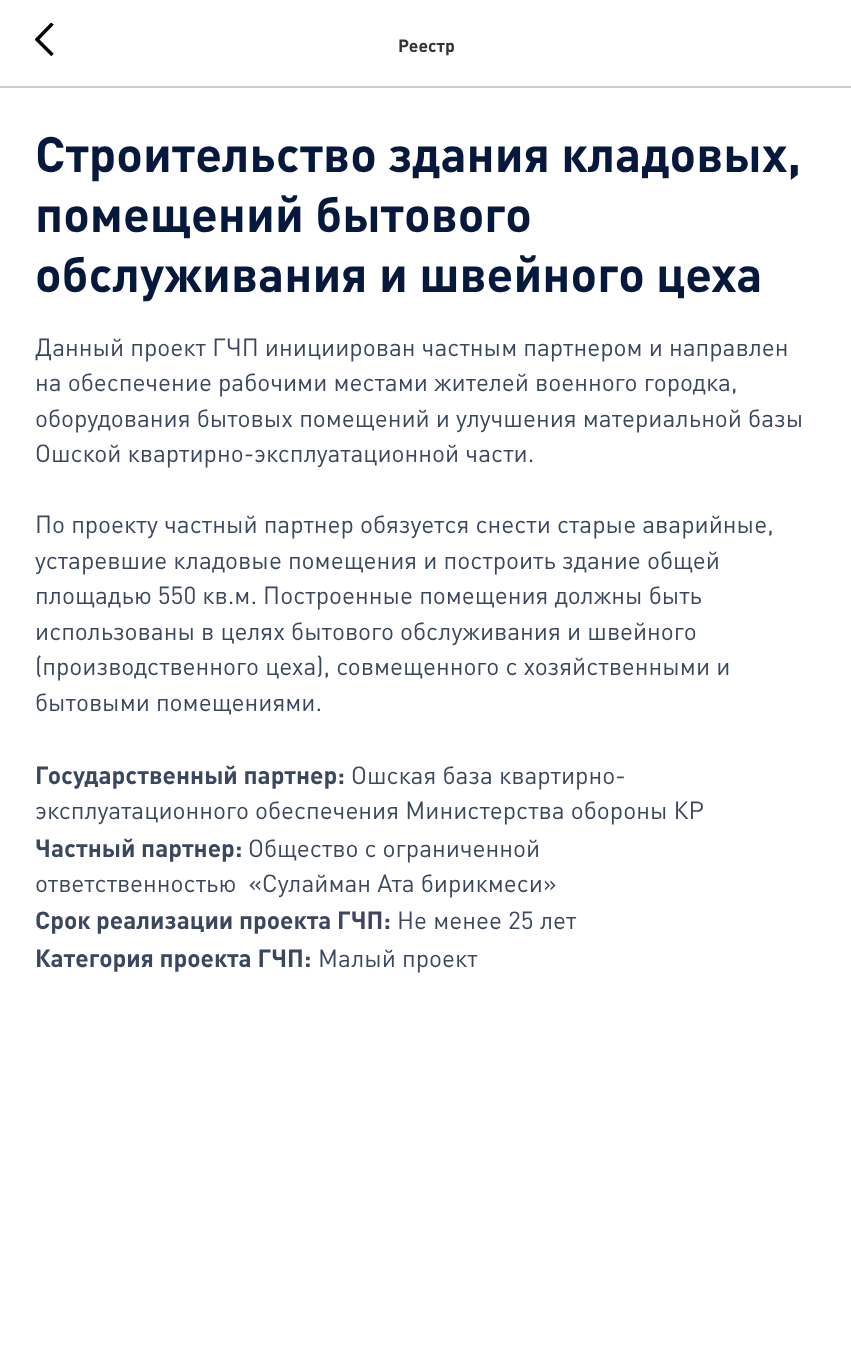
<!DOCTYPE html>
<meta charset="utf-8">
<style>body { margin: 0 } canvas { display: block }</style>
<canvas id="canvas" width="851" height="1369"></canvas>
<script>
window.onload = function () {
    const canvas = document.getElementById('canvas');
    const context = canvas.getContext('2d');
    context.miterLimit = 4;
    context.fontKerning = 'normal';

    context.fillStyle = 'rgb(255, 255, 255)';
    context.fillRect(0, 0, 851, 1369);
    context.fillStyle = 'rgb(204, 204, 204)';
    context.fillRect(0, 86, 851, 2);
    context.save();
    context.beginPath();
    context.rect(35, 23, 19, 35);
    context.clip();
    context.beginPath();
    context.moveTo(52.5, 55);
    context.lineTo(37, 39.5);
    context.lineTo(52.5, 23.5);
    context.strokeStyle = 'rgb(0, 0, 0)';
    context.lineWidth = 3.5;
    context.stroke();
    context.restore();
    context.font = 'bold 17.5px DIN';
    context.fillStyle = 'rgb(51, 51, 51)';
    context.fillText('Реестр', 398, 52);
    context.font = 'bold 49px DIN';
    context.fillStyle = 'rgb(6, 25, 60)';
    context.fillText('Строительство здания кладовых,', 35, 172);
    context.fillText('помещений бытового', 35, 232);
    context.fillText('обслуживания и швейного цеха', 35, 292);
    context.font = '24.5px DIN';
    context.fillStyle = 'rgb(59, 71, 94)';
    context.fillText('Данный проект ГЧП инициирован частным партнером и направлен', 35, 356);
    context.fillText('на обеспечение рабочими местами жителей военного городка,', 35, 391);
    context.fillText('оборудования бытовых помещений и улучшения материальной базы', 35, 427);
    context.fillText('Ошской квартирно-эксплуатационной части.', 35, 462);
    context.fillText('По проекту частный партнер обязуется снести старые аварийные,', 35, 533);
    context.fillText('устаревшие кладовые помещения и построить здание общей', 35, 569);
    context.fillText('площадью 550 кв.м. Построенные помещения должны быть', 35, 604);
    context.fillText('использованы в целях бытового обслуживания и швейного', 35, 640);
    context.fillText('(производственного цеха), совмещенного с хозяйственными и', 35, 675);
    context.fillText('бытовыми помещениями.', 35, 711);
    context.font = 'bold 24.5px DIN';
    context.fillText('Государственный партнер:', 35, 784);
    context.font = '24.5px DIN';
    context.fillText('Ошская база квартирно-', 351, 784);
    context.fillText('эксплуатационного обеспечения Министерства обороны КР', 35, 819);
    context.font = 'bold 24.5px DIN';
    context.fillText('Частный партнер:', 35, 857);
    context.font = '24.5px DIN';
    context.fillText('Общество с ограниченной', 248, 857);
    context.fillText('ответственностью  «Сулайман Ата бирикмеси»', 35, 892);
    context.font = 'bold 24.5px DIN';
    context.fillText('Срок реализации проекта ГЧП:', 35, 929);
    context.font = '24.5px DIN';
    context.fillText('Не менее 25 лет', 397, 929);
    context.font = 'bold 24.5px DIN';
    context.fillText('Категория проекта ГЧП:', 35, 967);
    context.font = '24.5px DIN';
    context.fillText('Малый проект', 318, 967);
};
</script>
